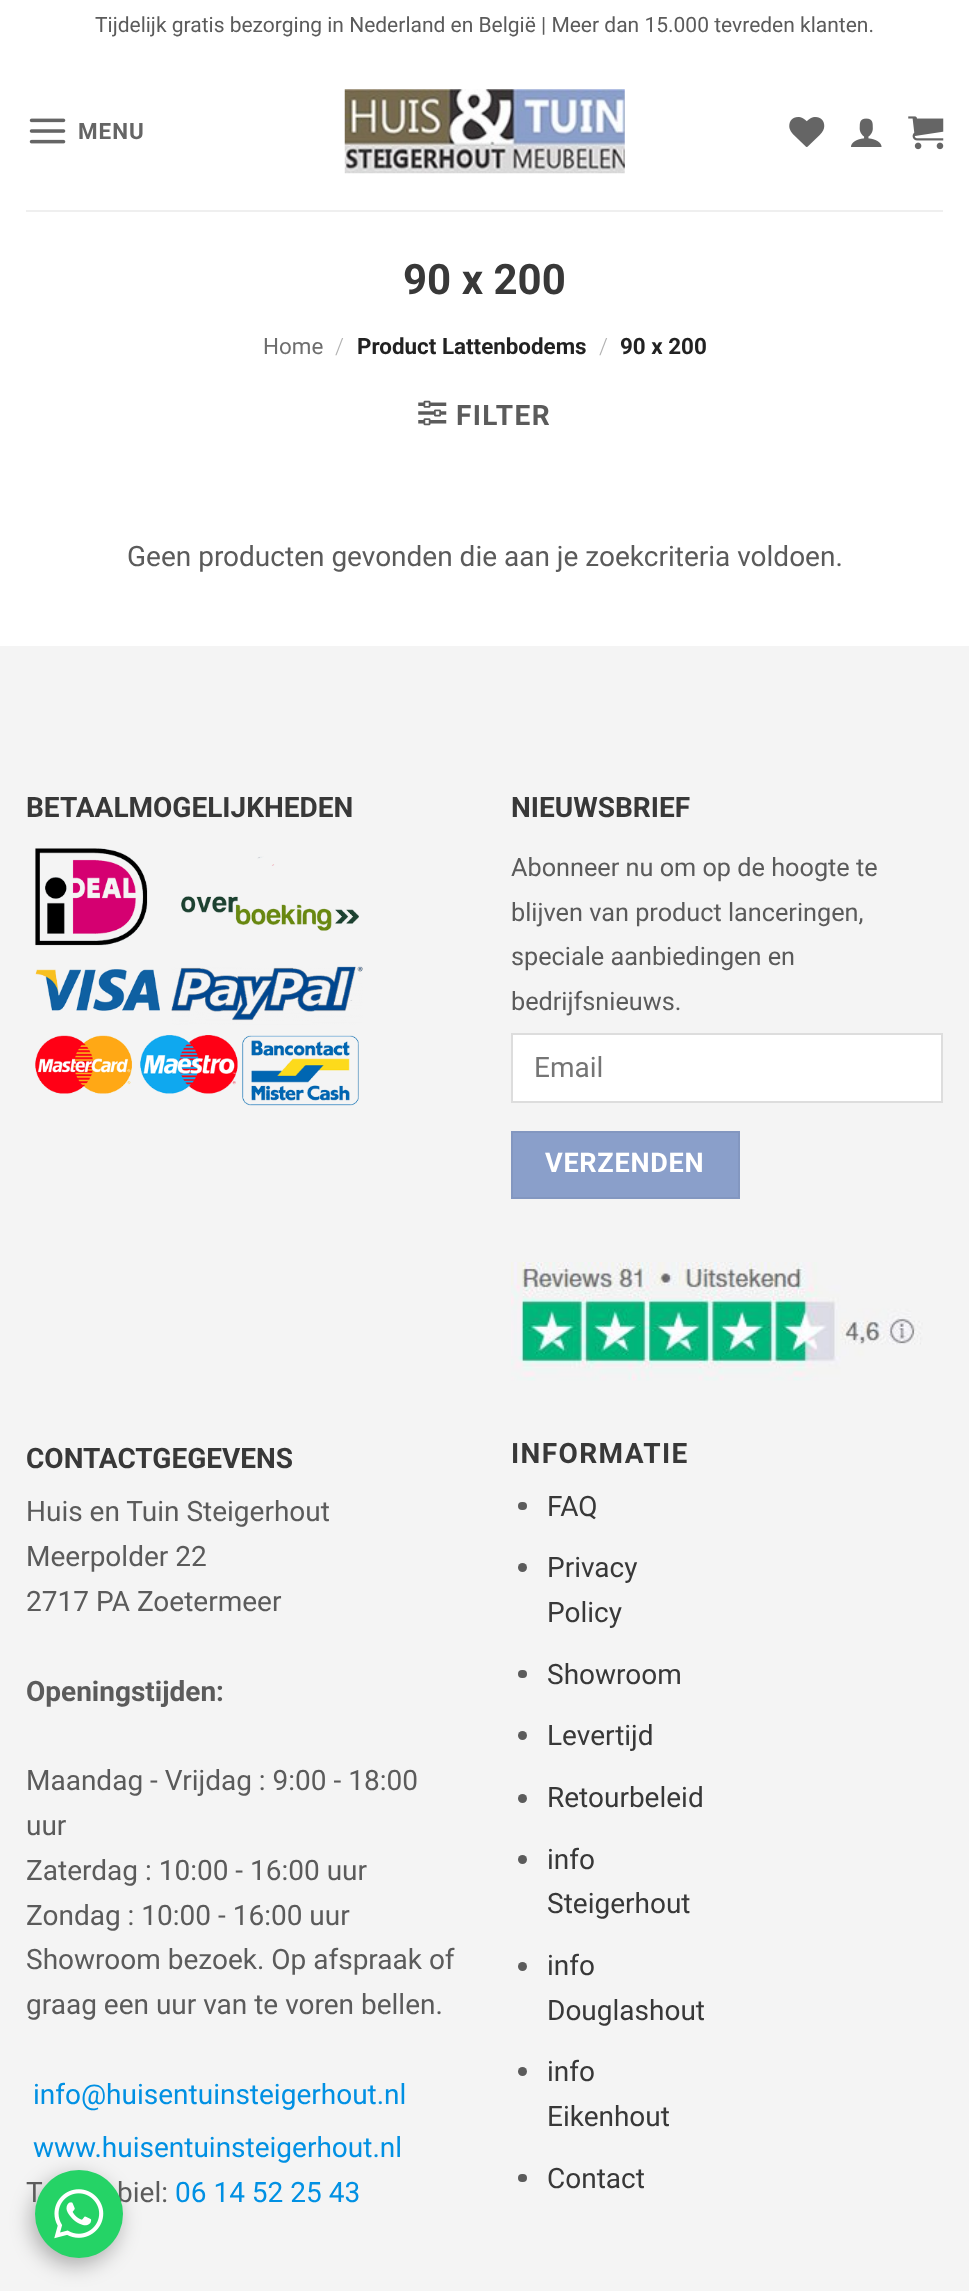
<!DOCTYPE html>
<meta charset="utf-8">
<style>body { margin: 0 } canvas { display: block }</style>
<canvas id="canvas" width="969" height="2291"></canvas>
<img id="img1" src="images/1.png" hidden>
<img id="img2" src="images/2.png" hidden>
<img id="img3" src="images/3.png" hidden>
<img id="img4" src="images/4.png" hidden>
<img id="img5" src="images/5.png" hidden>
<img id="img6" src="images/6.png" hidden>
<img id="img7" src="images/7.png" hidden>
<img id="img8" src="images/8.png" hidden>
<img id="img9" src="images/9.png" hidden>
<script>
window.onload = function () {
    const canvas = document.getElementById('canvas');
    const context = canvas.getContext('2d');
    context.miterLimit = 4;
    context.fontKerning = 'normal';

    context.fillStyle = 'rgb(255, 255, 255)';
    context.fillRect(0, 0, 969, 2291);
    context.drawImage(document.getElementById('img1'), 29, 118, 37, 26);
    context.drawImage(document.getElementById('img2'), 344, 89, 281, 85);
    context.drawImage(document.getElementById('img3'), 789, 117, 36, 30);
    context.drawImage(document.getElementById('img4'), 851, 118, 31, 29);
    context.drawImage(document.getElementById('img5'), 908, 116, 36, 34);
    context.fillStyle = 'rgb(239, 239, 239)';
    context.fillRect(26, 210, 917, 2);
    context.drawImage(document.getElementById('img6'), 418, 400, 29, 26);
    context.fillStyle = 'rgb(244, 244, 244)';
    context.fillRect(0, 646, 969, 1645);
    context.drawImage(document.getElementById('img7'), 35, 848, 328, 258);
    context.fillStyle = 'rgb(255, 255, 255)';
    context.beginPath();
    context.rect(512, 1034, 430, 68);
    context.fill();
    context.strokeStyle = 'rgb(221, 221, 221)';
    context.lineWidth = 2;
    context.stroke();
    context.fillStyle = 'rgb(138, 159, 202)';
    context.beginPath();
    context.rect(512, 1132, 227, 66);
    context.fill();
    context.strokeStyle = 'rgb(131, 151, 192)';
    context.stroke();
    context.drawImage(document.getElementById('img8'), 511, 1262, 412, 119);
    context.fillStyle = 'rgb(91, 91, 91)';
    context.beginPath();
    context.roundRect(518, 1502, 9, 8, 4);
    context.fill();
    context.beginPath();
    context.arc(522.5, 1567.5, 4.5, 0, 2 * Math.PI);
    context.fill();
    context.beginPath();
    context.roundRect(518, 1670, 9, 8, 4);
    context.fill();
    context.beginPath();
    context.arc(522.5, 1735.5, 4.5, 0, 2 * Math.PI);
    context.fill();
    context.beginPath();
    context.arc(522.5, 1798.5, 4.5, 0, 2 * Math.PI);
    context.fill();
    context.beginPath();
    context.arc(522.5, 1859.5, 4.5, 0, 2 * Math.PI);
    context.fill();
    context.beginPath();
    context.arc(522.5, 1966.5, 4.5, 0, 2 * Math.PI);
    context.fill();
    context.beginPath();
    context.arc(522.5, 2071.5, 4.5, 0, 2 * Math.PI);
    context.fill();
    context.beginPath();
    context.roundRect(518, 2174, 9, 8, 4);
    context.fill();
    context.fillStyle = 'rgba(0, 0, 0, 0.3)';
    context.filter = 'blur(10.5px)';
    context.beginPath();
    context.roundRect(32, 2177, 87, 88, 43.5);
    context.fill();
    context.filter = 'none';
    context.font = '21px Roboto';
    context.fillStyle = 'rgb(91, 91, 91)';
    context.fillText('Tijdelijk gratis bezorging in Nederland en België | Meer dan 15.000 tevreden klanten.', 95, 32);
    context.letterSpacing = '1px';
    context.font = 'bold 22.4px Roboto';
    context.fillStyle = 'rgb(101, 101, 101)';
    context.fillText('MENU', 78, 139);
    context.letterSpacing = '0px';
    context.font = 'bold 42px Roboto';
    context.fillStyle = 'rgb(56, 56, 56)';
    context.fillText('90 x 200', 403, 294);
    context.font = '22.4px Roboto';
    context.fillStyle = 'rgb(110, 110, 110)';
    context.fillText('Home', 263, 354);
    context.font = '300 22.4px Roboto';
    context.fillStyle = 'rgb(178, 178, 178)';
    context.fillText('/', 335, 354);
    context.font = 'bold 22.4px Roboto';
    context.fillStyle = 'rgb(34, 34, 34)';
    context.fillText('Product Lattenbodems', 357, 354);
    context.font = '300 22.4px Roboto';
    context.fillStyle = 'rgb(178, 178, 178)';
    context.fillText('/', 599, 354);
    context.font = 'bold 22.4px Roboto';
    context.fillStyle = 'rgb(34, 34, 34)';
    context.fillText('90 x 200', 620, 354);
    context.letterSpacing = '1.4px';
    context.font = 'bold 28px Roboto';
    context.fillStyle = 'rgb(91, 91, 91)';
    context.fillText('FILTER', 456, 425);
    context.letterSpacing = '0px';
    context.font = '28px Roboto';
    context.fillText('Geen producten gevonden die aan je zoekcriteria voldoen.', 127, 566);
    context.font = 'bold 28px Roboto';
    context.fillStyle = 'rgb(56, 56, 56)';
    context.fillText('BETAALMOGELIJKHEDEN', 26, 817);
    context.fillText('NIEUWSBRIEF', 511, 817);
    context.font = '25.25px Roboto';
    context.fillStyle = 'rgb(91, 91, 91)';
    context.fillText('Abonneer nu om op de hoogte te', 511, 876);
    context.fillText('blijven van product lanceringen,', 511, 921);
    context.fillText('speciale aanbiedingen en', 511, 965);
    context.fillText('bedrijfsnieuws.', 511, 1010);
    context.font = '28px Roboto';
    context.fillStyle = 'rgb(117, 117, 117)';
    context.fillText('Email', 534, 1077);
    context.letterSpacing = '0.75px';
    context.font = 'bold 27px Roboto';
    context.fillStyle = 'rgb(255, 255, 255)';
    context.fillText('VERZENDEN', 545, 1172);
    context.letterSpacing = '0px';
    context.font = 'bold 28px Roboto';
    context.fillStyle = 'rgb(56, 56, 56)';
    context.fillText('CONTACTGEGEVENS', 26, 1468);
    context.font = '28px Roboto';
    context.fillStyle = 'rgb(91, 91, 91)';
    context.fillText('Huis en Tuin Steigerhout', 26, 1521);
    context.fillText('Meerpolder 22', 26, 1566);
    context.fillText('2717 PA Zoetermeer', 26, 1611);
    context.font = 'bold 28px Roboto';
    context.fillText('Openingstijden:', 26, 1701);
    context.font = '28px Roboto';
    context.fillText('Maandag - Vrijdag : 9:00 - 18:00', 26, 1790);
    context.fillText('uur', 26, 1835);
    context.fillText('Zaterdag : 10:00 - 16:00 uur', 26, 1880);
    context.fillText('Zondag : 10:00 - 16:00 uur', 26, 1925);
    context.fillText('Showroom bezoek. Op afspraak of', 26, 1969);
    context.fillText('graag een uur van te voren bellen.', 26, 2014);
    context.fillStyle = 'rgb(0, 144, 227)';
    context.fillText('info@huisentuinsteigerhout.nl', 33, 2104);
    context.fillText('www.huisentuinsteigerhout.nl', 33, 2157);
    context.fillStyle = 'rgb(91, 91, 91)';
    context.fillText('T', 26, 2202);
    context.fillText('biel:', 117, 2202);
    context.fillStyle = 'rgb(0, 144, 227)';
    context.fillText('06 14 52 25 43', 175, 2202);
    context.letterSpacing = '1.4px';
    context.font = 'bold 28px Roboto';
    context.fillStyle = 'rgb(56, 56, 56)';
    context.fillText('INFORMATIE', 511, 1463);
    context.letterSpacing = '0px';
    context.font = '28px Roboto';
    context.fillText('FAQ', 547, 1516);
    context.fillText('Privacy', 547, 1577);
    context.fillText('Policy', 547, 1622);
    context.fillText('Showroom', 547, 1684);
    context.fillText('Levertijd', 547, 1745);
    context.fillText('Retourbeleid', 547, 1807);
    context.fillText('info', 547, 1869);
    context.fillText('Steigerhout', 547, 1913);
    context.fillText('info', 547, 1975);
    context.fillText('Douglashout', 547, 2020);
    context.fillText('info', 547, 2081);
    context.fillText('Eikenhout', 547, 2126);
    context.fillText('Contact', 547, 2188);
    context.fillStyle = 'rgb(37, 211, 102)';
    context.beginPath();
    context.arc(79, 2214, 44, 0, 2 * Math.PI);
    context.fill();
    context.drawImage(document.getElementById('img9'), 54, 2189, 50, 50);
};
</script>
